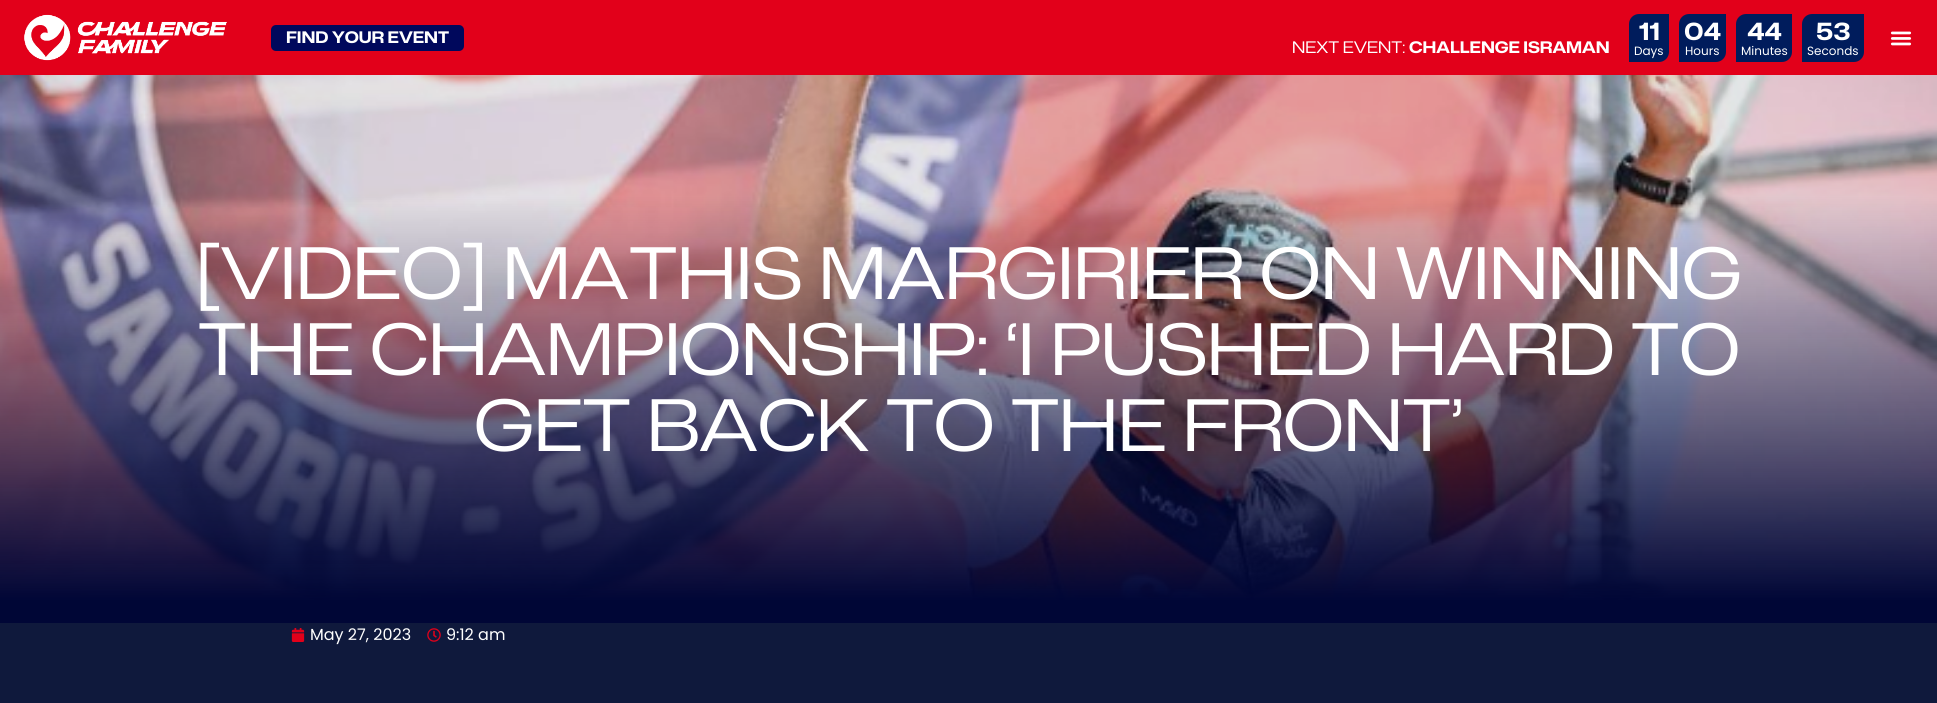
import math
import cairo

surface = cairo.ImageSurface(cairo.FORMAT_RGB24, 1937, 703)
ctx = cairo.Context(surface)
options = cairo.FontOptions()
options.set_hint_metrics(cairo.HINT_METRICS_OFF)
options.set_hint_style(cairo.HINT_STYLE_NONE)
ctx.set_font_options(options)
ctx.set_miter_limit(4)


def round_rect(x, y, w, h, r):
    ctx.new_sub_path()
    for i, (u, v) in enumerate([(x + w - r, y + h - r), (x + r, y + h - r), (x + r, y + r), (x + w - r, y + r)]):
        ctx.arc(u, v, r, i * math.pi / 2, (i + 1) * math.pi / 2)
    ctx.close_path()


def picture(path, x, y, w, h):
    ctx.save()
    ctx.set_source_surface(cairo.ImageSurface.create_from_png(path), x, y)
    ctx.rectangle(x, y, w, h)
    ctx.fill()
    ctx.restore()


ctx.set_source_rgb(1, 1, 1)
ctx.paint()
ctx.set_source_rgb(0.886, 0, 0.102)
ctx.rectangle(0, 0, 1937, 75)
ctx.fill()
picture("img1.png", 24, 14, 203, 47)
ctx.set_source_rgb(0, 0.035, 0.361)
round_rect(271, 25, 193, 26, 5)
ctx.fill()
ctx.select_font_face("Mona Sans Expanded", cairo.FONT_SLANT_NORMAL, cairo.FONT_WEIGHT_BOLD)
ctx.set_font_size(16)
ctx.set_source_rgb(1, 1, 1)
ctx.move_to(286, 43)
ctx.show_text("FIND YOUR EVENT")
ctx.set_source_rgb(0, 0.11, 0.361)
ctx.new_path()
ctx.move_to(1639, 14)
ctx.line_to(1669, 14)
ctx.line_to(1669, 52)
ctx.curve_to(1669, 57.5, 1664.5, 62, 1659, 62)
ctx.line_to(1629, 62)
ctx.line_to(1629, 24)
ctx.curve_to(1629, 18.5, 1633.5, 14, 1639, 14)
ctx.close_path()
ctx.fill()
ctx.set_font_size(24)
ctx.set_source_rgb(1, 1, 1)
ctx.move_to(1639, 40)
ctx.show_text("11")
ctx.select_font_face("Poppins")
ctx.set_font_size(12)
ctx.move_to(1634, 55)
ctx.show_text("Days")
ctx.set_source_rgb(0, 0.11, 0.361)
ctx.new_path()
ctx.move_to(1689, 14)
ctx.line_to(1726, 14)
ctx.line_to(1726, 52)
ctx.curve_to(1726, 57.5, 1721.5, 62, 1716, 62)
ctx.line_to(1679, 62)
ctx.line_to(1679, 24)
ctx.curve_to(1679, 18.5, 1683.5, 14, 1689, 14)
ctx.close_path()
ctx.fill()
ctx.select_font_face("Mona Sans Expanded", cairo.FONT_SLANT_NORMAL, cairo.FONT_WEIGHT_BOLD)
ctx.set_font_size(24)
ctx.set_source_rgb(1, 1, 1)
ctx.move_to(1684, 40)
ctx.show_text("04")
ctx.select_font_face("Poppins")
ctx.set_font_size(12)
ctx.move_to(1685, 55)
ctx.show_text("Hours")
ctx.set_source_rgb(0, 0.11, 0.361)
ctx.new_path()
ctx.move_to(1746, 14)
ctx.line_to(1792, 14)
ctx.line_to(1792, 52)
ctx.curve_to(1792, 57.5, 1787.5, 62, 1782, 62)
ctx.line_to(1736, 62)
ctx.line_to(1736, 24)
ctx.curve_to(1736, 18.5, 1740.5, 14, 1746, 14)
ctx.close_path()
ctx.fill()
ctx.select_font_face("Mona Sans Expanded", cairo.FONT_SLANT_NORMAL, cairo.FONT_WEIGHT_BOLD)
ctx.set_font_size(24)
ctx.set_source_rgb(1, 1, 1)
ctx.move_to(1747, 40)
ctx.show_text("44")
ctx.select_font_face("Poppins")
ctx.set_font_size(12)
ctx.move_to(1741, 55)
ctx.show_text("Minutes")
ctx.set_source_rgb(0, 0.11, 0.361)
ctx.new_path()
ctx.move_to(1812, 14)
ctx.line_to(1864, 14)
ctx.line_to(1864, 52)
ctx.curve_to(1864, 57.5, 1859.5, 62, 1854, 62)
ctx.line_to(1802, 62)
ctx.line_to(1802, 24)
ctx.curve_to(1802, 18.5, 1806.5, 14, 1812, 14)
ctx.close_path()
ctx.fill()
ctx.select_font_face("Mona Sans Expanded", cairo.FONT_SLANT_NORMAL, cairo.FONT_WEIGHT_BOLD)
ctx.set_font_size(24)
ctx.set_source_rgb(1, 1, 1)
ctx.move_to(1816, 40)
ctx.show_text("53")
ctx.select_font_face("Poppins")
ctx.set_font_size(12)
ctx.move_to(1807, 55)
ctx.show_text("Seconds")
picture("img2.png", 1890, 31, 22, 15)
ctx.select_font_face("Mona Sans Expanded")
ctx.set_font_size(16)
ctx.move_to(1292, 53)
ctx.show_text("NEXT EVENT:")
ctx.select_font_face("Mona Sans Expanded", cairo.FONT_SLANT_NORMAL, cairo.FONT_WEIGHT_BOLD)
ctx.move_to(1409, 53)
ctx.show_text("CHALLENGE ISRAMAN")
picture("img3.png", 0, 75, 1937, 548)
ctx.select_font_face("Mona Sans Expanded")
ctx.set_font_size(71)
ctx.move_to(196, 299)
ctx.show_text("[VIDEO] MATHIS MARGIRIER ON WINNING")
ctx.move_to(198, 375)
ctx.show_text("THE CHAMPIONSHIP: ‘I PUSHED HARD TO")
ctx.move_to(474, 451)
ctx.show_text("GET BACK TO THE FRONT’")
ctx.set_source_rgb(0.059, 0.098, 0.235)
ctx.rectangle(0, 623, 1937, 80)
ctx.fill()
picture("img4.png", 291, 628, 14, 14)
ctx.select_font_face("Poppins")
ctx.set_font_size(16)
ctx.set_source_rgb(1, 1, 1)
ctx.move_to(310, 640)
ctx.show_text("May 27, 2023")
picture("img5.png", 427, 628, 14, 14)
ctx.move_to(446, 640)
ctx.show_text("9:12 am")
surface.write_to_png("page.png")
